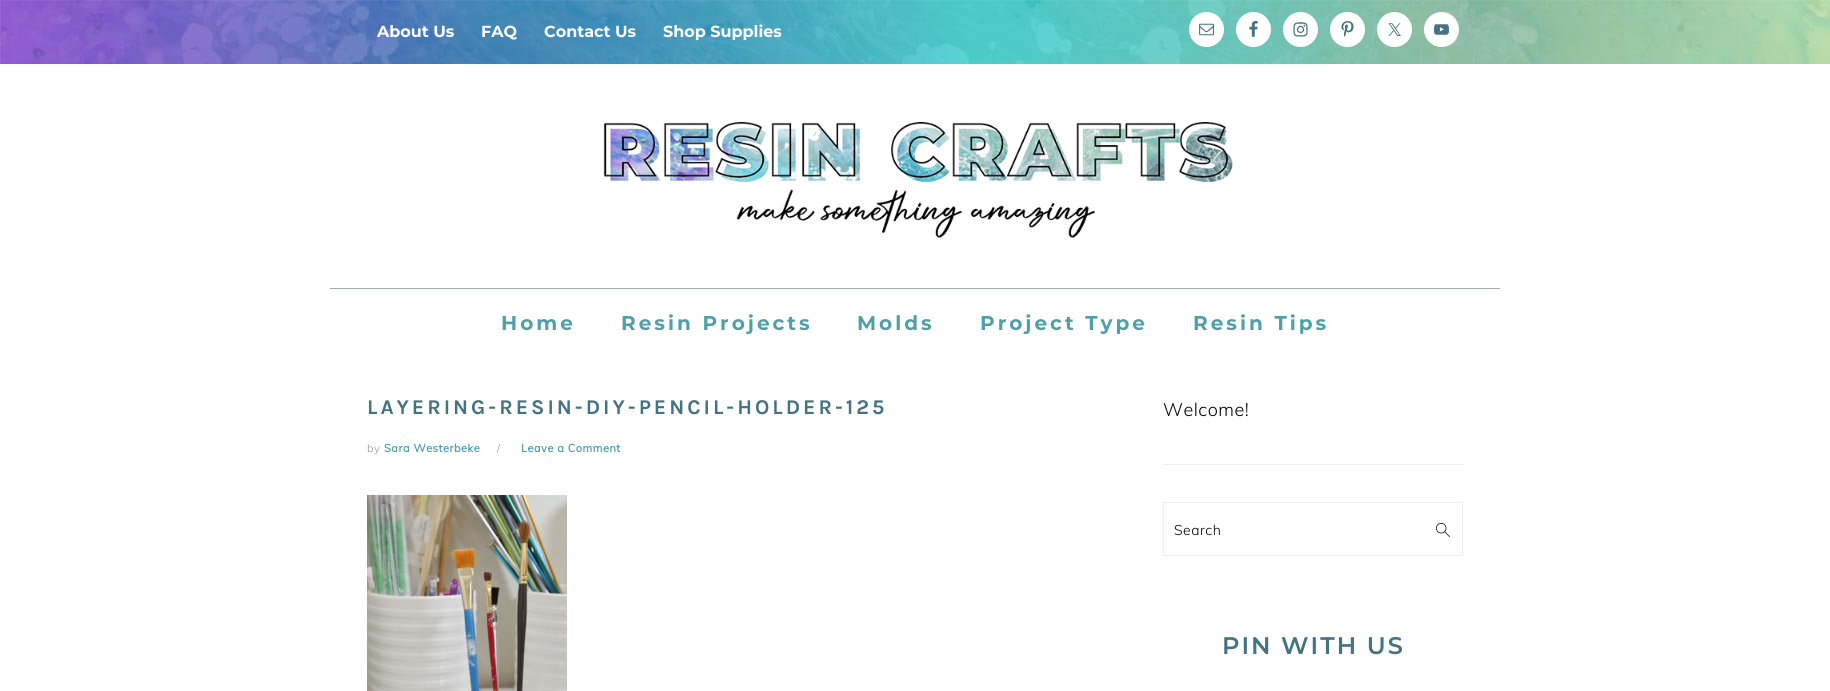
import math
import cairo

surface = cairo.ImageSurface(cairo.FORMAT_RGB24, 1830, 691)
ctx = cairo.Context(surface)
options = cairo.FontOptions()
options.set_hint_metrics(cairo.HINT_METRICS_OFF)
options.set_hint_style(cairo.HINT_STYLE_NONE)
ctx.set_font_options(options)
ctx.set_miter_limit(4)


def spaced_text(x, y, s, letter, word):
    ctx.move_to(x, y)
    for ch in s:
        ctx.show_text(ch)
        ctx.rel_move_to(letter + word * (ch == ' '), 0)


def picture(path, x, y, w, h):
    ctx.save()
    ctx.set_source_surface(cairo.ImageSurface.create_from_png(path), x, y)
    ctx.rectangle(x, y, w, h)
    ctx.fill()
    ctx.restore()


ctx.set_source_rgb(1, 1, 1)
ctx.paint()
picture("img1.png", 0, 0, 1830, 64)
ctx.select_font_face("Montserrat", cairo.FONT_SLANT_NORMAL, cairo.FONT_WEIGHT_BOLD)
ctx.set_font_size(16)
ctx.set_source_rgb(1, 1, 1)
ctx.move_to(377, 37)
ctx.show_text("About Us")
ctx.move_to(481, 37)
ctx.show_text("FAQ")
ctx.move_to(544, 37)
ctx.show_text("Contact Us")
ctx.move_to(663, 37)
ctx.show_text("Shop Supplies")
ctx.new_path()
ctx.arc(1206.5, 29.5, 17.5, 0, 2 * math.pi)
ctx.fill()
picture("img2.png", 1199, 23, 15, 13)
ctx.arc(1253.5, 29.5, 17.5, 0, 2 * math.pi)
ctx.fill()
picture("img3.png", 1249, 21, 9, 16)
ctx.arc(1300.5, 29.5, 17.5, 0, 2 * math.pi)
ctx.fill()
picture("img4.png", 1293, 22, 15, 15)
ctx.arc(1347.5, 29.5, 17.5, 0, 2 * math.pi)
ctx.fill()
picture("img5.png", 1341, 21, 13, 16)
ctx.arc(1394.5, 29.5, 17.5, 0, 2 * math.pi)
ctx.fill()
picture("img6.png", 1388, 23, 13, 13)
ctx.arc(1441.5, 29.5, 17.5, 0, 2 * math.pi)
ctx.fill()
picture("img7.png", 1434, 24, 15, 11)
picture("img8.png", 603, 122, 630, 116)
ctx.set_source_rgb(0.651, 0.671, 0.671)
ctx.rectangle(330, 288, 1170, 1)
ctx.fill()
ctx.set_font_size(20)
ctx.set_source_rgb(0.314, 0.627, 0.663)
spaced_text(501, 330, "Home", 3, 0)
spaced_text(621, 330, "Resin Projects", 3, 0)
spaced_text(857, 330, "Molds", 3, 0)
spaced_text(980, 330, "Project Type", 3, 0)
spaced_text(1193, 330, "Resin Tips", 3, 0)
ctx.select_font_face("Karla", cairo.FONT_SLANT_NORMAL, cairo.FONT_WEIGHT_BOLD)
ctx.set_font_size(21)
ctx.set_source_rgb(0.267, 0.451, 0.51)
spaced_text(367, 414, "LAYERING-RESIN-DIY-PENCIL-HOLDER-125", 3, 0)
ctx.select_font_face("Muli Light")
ctx.set_font_size(11)
ctx.set_source_rgb(0.58, 0.584, 0.596)
spaced_text(367, 452, "by", 0.5, 0)
ctx.select_font_face("Muli", cairo.FONT_SLANT_NORMAL, cairo.FONT_WEIGHT_BOLD)
ctx.set_source_rgb(0.314, 0.627, 0.663)
spaced_text(384, 452, "Sara Westerbeke", 0.5, 0)
ctx.select_font_face("Muli Light")
ctx.set_source_rgb(0.58, 0.584, 0.596)
spaced_text(497, 452, "/", 0.5, 0)
ctx.select_font_face("Muli", cairo.FONT_SLANT_NORMAL, cairo.FONT_WEIGHT_BOLD)
ctx.set_source_rgb(0.314, 0.627, 0.663)
spaced_text(521, 452, "Leave a Comment", 0.5, 0)
picture("img9.png", 367, 495, 200, 196)
ctx.set_source_rgb(0.933, 0.933, 0.933)
ctx.rectangle(1163, 464, 300, 1)
ctx.fill()
ctx.select_font_face("Muli Light")
ctx.set_font_size(18)
ctx.set_source_rgb(0.004, 0.004, 0.004)
spaced_text(1163, 416, "Welcome!", 0.5, 0)
ctx.rectangle(1163.5, 502.5, 299, 53)
ctx.set_source_rgb(0.933, 0.933, 0.933)
ctx.set_line_width(1)
ctx.stroke()
picture("img10.png", 1436, 523, 14, 14)
ctx.set_font_size(14)
ctx.set_source_rgb(0.004, 0.004, 0.004)
spaced_text(1174, 535, "Search", 0.5, 0)
ctx.select_font_face("Montserrat SemiBold")
ctx.set_font_size(24)
ctx.set_source_rgb(0.267, 0.451, 0.51)
spaced_text(1222, 654, "PIN WITH US", 2, 0)
surface.write_to_png("page.png")
